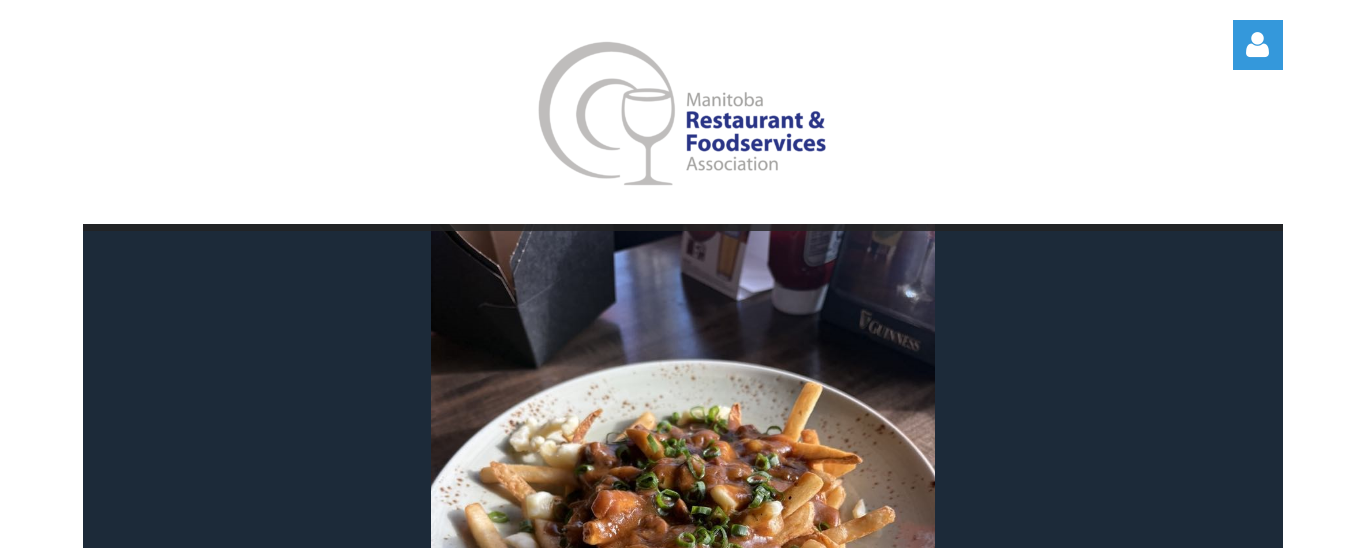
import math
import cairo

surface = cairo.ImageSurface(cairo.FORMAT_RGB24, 1365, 548)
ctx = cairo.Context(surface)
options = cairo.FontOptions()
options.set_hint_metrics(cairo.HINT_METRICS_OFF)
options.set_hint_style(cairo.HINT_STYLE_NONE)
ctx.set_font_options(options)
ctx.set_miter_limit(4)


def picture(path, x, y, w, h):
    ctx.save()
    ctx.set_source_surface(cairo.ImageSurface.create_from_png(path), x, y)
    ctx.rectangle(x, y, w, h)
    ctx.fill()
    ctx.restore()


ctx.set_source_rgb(1, 1, 1)
ctx.paint()
picture("img1.png", 538, 41, 288, 145)
ctx.set_source_rgb(0.204, 0.596, 0.859)
ctx.rectangle(1233, 20, 50, 50)
ctx.fill()
picture("img2.png", 1246, 32, 23, 26)
ctx.set_source_rgb(0.11, 0.165, 0.224)
ctx.rectangle(83, 224, 1200, 324)
ctx.fill()
picture("img3.png", 431, 224, 504, 324)
ctx.set_source_rgba(0.133, 0.133, 0.133, 0.8)
ctx.rectangle(83, 224, 1200, 7)
ctx.fill()
surface.write_to_png("page.png")
